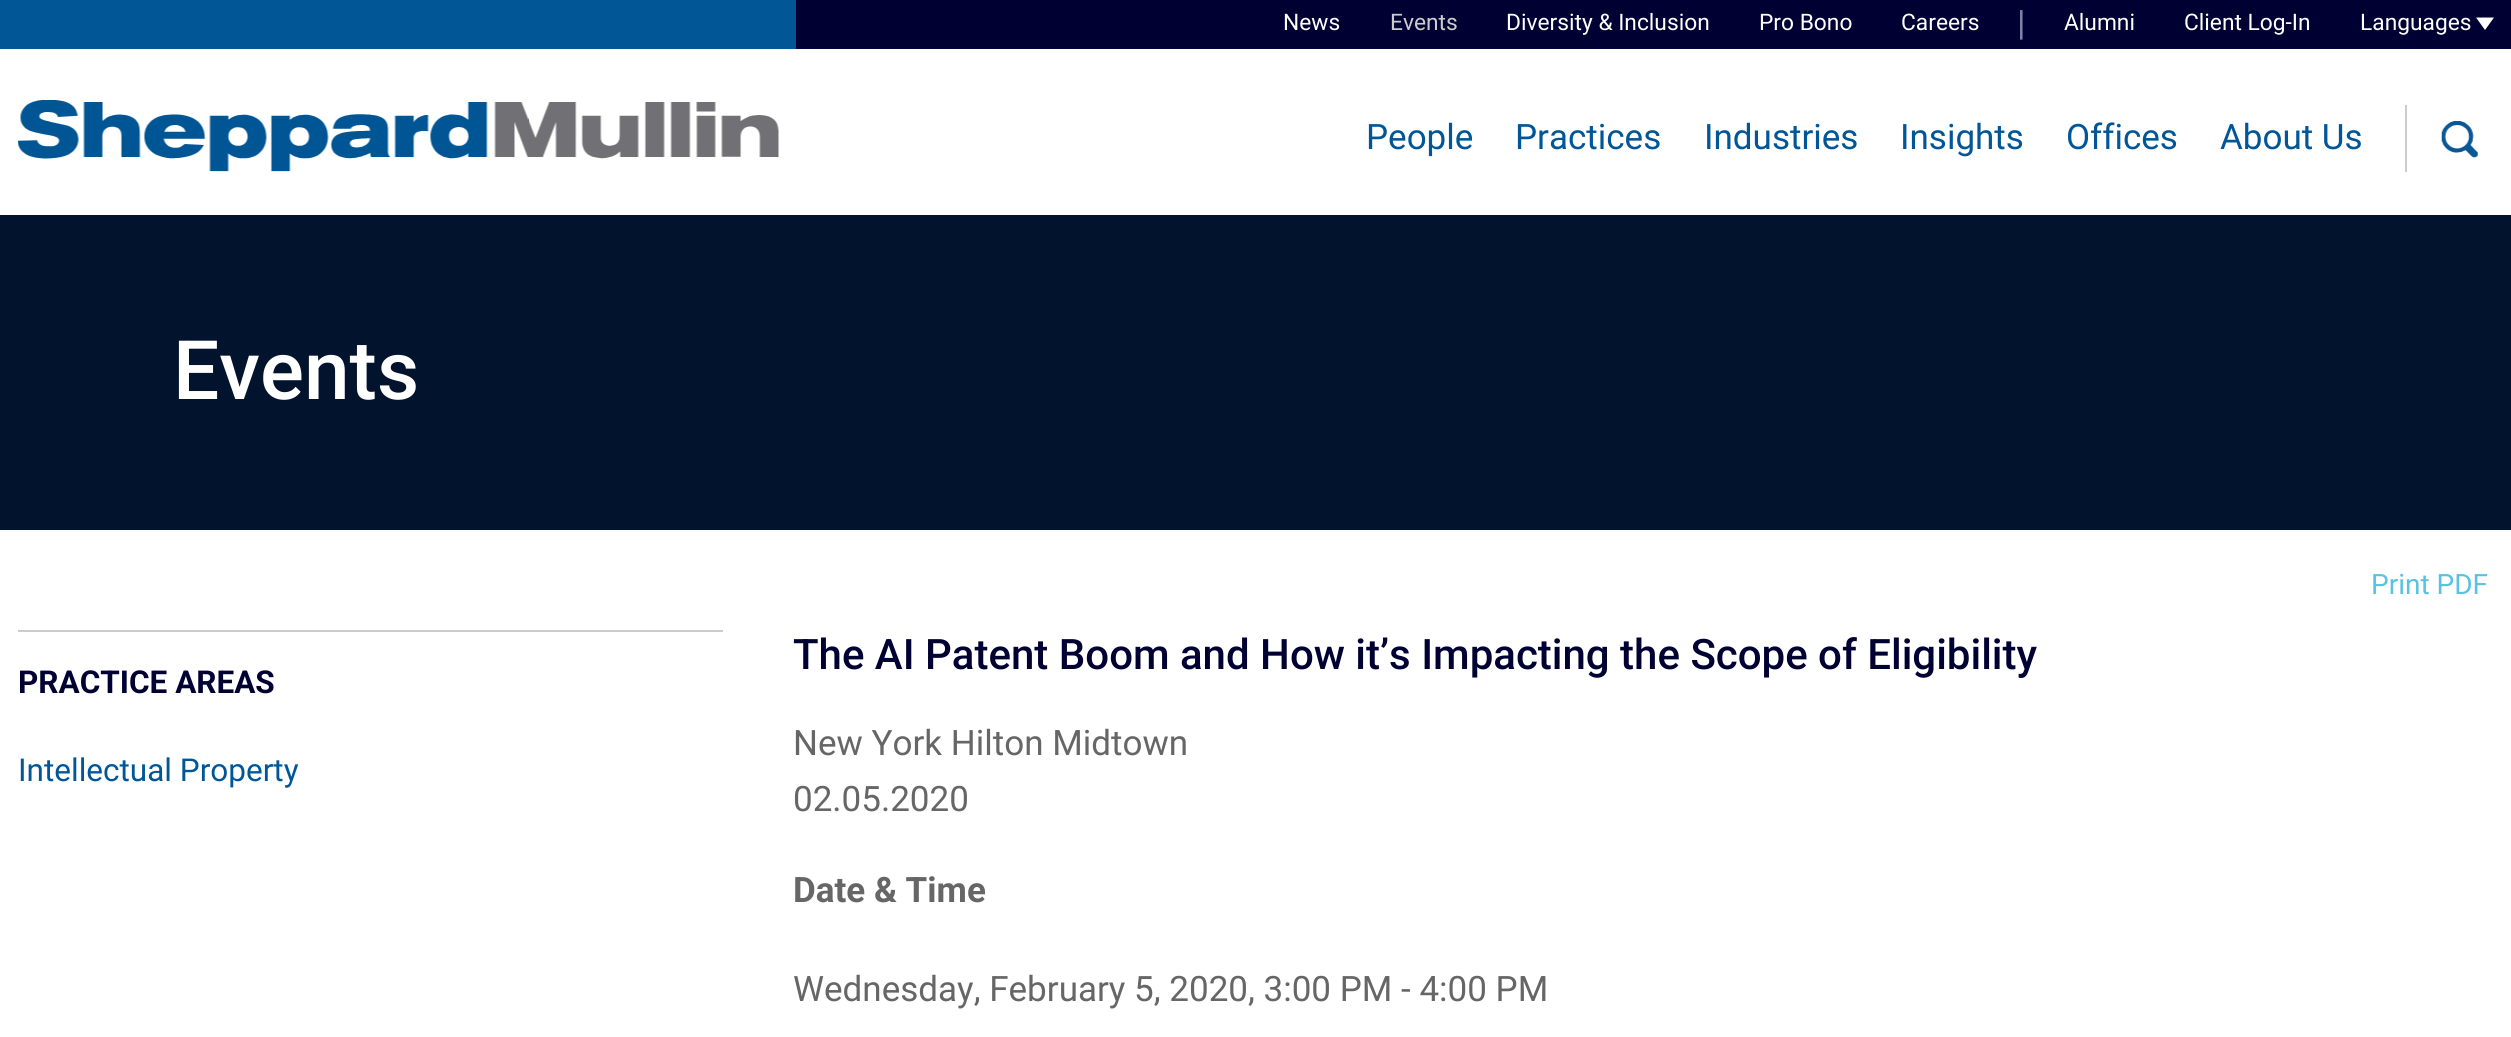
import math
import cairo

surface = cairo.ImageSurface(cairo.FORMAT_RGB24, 2511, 1037)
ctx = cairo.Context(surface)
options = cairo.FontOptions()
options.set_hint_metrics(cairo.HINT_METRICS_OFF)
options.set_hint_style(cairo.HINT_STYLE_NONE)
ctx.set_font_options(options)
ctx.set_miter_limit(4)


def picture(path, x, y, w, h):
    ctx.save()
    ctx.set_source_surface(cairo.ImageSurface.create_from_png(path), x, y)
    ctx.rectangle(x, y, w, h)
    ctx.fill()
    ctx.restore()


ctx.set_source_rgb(1, 1, 1)
ctx.paint()
ctx.set_source_rgb(0.004, 0.337, 0.588)
ctx.rectangle(0, 0, 796, 49)
ctx.fill()
ctx.set_source_rgb(0, 0, 0.2)
ctx.rectangle(796, 0, 1715, 49)
ctx.fill()
ctx.select_font_face("Roboto")
ctx.set_font_size(22.75)
ctx.set_source_rgb(1, 1, 1)
ctx.move_to(1283, 30)
ctx.show_text("News")
ctx.set_source_rgb(0.8, 0.8, 0.8)
ctx.move_to(1390, 30)
ctx.show_text("Events")
ctx.set_source_rgb(1, 1, 1)
ctx.move_to(1506, 30)
ctx.show_text("Diversity & Inclusion")
ctx.move_to(1759, 30)
ctx.show_text("Pro Bono")
ctx.move_to(1901, 30)
ctx.show_text("Careers")
ctx.set_font_size(35)
ctx.set_source_rgb(0.51, 0.51, 0.659)
ctx.move_to(2017, 35)
ctx.show_text("|")
ctx.set_font_size(22.75)
ctx.set_source_rgb(1, 1, 1)
ctx.move_to(2064, 30)
ctx.show_text("Alumni")
ctx.move_to(2184, 30)
ctx.show_text("Client Log-In")
ctx.move_to(2360, 30)
ctx.show_text("Languages")
ctx.new_path()
ctx.move_to(2476, 17.5)
ctx.line_to(2494, 17.5)
ctx.line_to(2485, 30)
ctx.close_path()
ctx.fill()
ctx.set_source_rgb(0.8, 0.8, 0.8)
ctx.rectangle(2405, 105, 2, 67)
ctx.fill()
ctx.set_font_size(35)
ctx.set_source_rgb(0, 0.337, 0.588)
ctx.move_to(1366, 149)
ctx.show_text("People")
ctx.move_to(1515, 149)
ctx.show_text("Practices")
ctx.move_to(1704, 149)
ctx.show_text("Industries")
ctx.move_to(1900, 149)
ctx.show_text("Insights")
ctx.move_to(2066, 149)
ctx.show_text("Offices")
ctx.move_to(2220, 149)
ctx.show_text("About Us")
picture("img1.png", 18, 100, 761, 72)
picture("img2.png", 2441, 121, 37, 37)
ctx.set_source_rgb(0.008, 0.078, 0.18)
ctx.rectangle(0, 215, 2511, 315)
ctx.fill()
ctx.select_font_face("Roboto Medium")
ctx.set_font_size(82)
ctx.set_source_rgb(1, 1, 1)
ctx.move_to(173, 399)
ctx.show_text("Events")
ctx.select_font_face("Roboto")
ctx.set_font_size(28)
ctx.set_source_rgb(0.345, 0.761, 0.89)
ctx.move_to(2371, 594)
ctx.show_text("Print PDF")
ctx.set_source_rgb(0.8, 0.8, 0.8)
ctx.rectangle(18, 630, 705, 2)
ctx.fill()
ctx.select_font_face("Roboto", cairo.FONT_SLANT_NORMAL, cairo.FONT_WEIGHT_BOLD)
ctx.set_font_size(31.5)
ctx.set_source_rgb(0, 0, 0.2)
ctx.move_to(18, 693)
ctx.show_text("PRACTICE AREAS")
ctx.select_font_face("Roboto")
ctx.set_source_rgb(0, 0.337, 0.588)
ctx.move_to(18, 781)
ctx.show_text("Intellectual Property")
ctx.select_font_face("Roboto Medium")
ctx.set_font_size(42)
ctx.set_source_rgb(0, 0, 0.2)
ctx.move_to(793, 669)
ctx.show_text("The AI Patent Boom and How it’s Impacting the Scope of Eligibility")
ctx.select_font_face("Roboto")
ctx.set_font_size(35)
ctx.set_source_rgb(0.4, 0.4, 0.4)
ctx.move_to(793, 755)
ctx.show_text("New York Hilton Midtown")
ctx.move_to(793, 811)
ctx.show_text("02.05.2020")
ctx.select_font_face("Roboto", cairo.FONT_SLANT_NORMAL, cairo.FONT_WEIGHT_BOLD)
ctx.move_to(793, 902)
ctx.show_text("Date & Time")
ctx.select_font_face("Roboto")
ctx.move_to(793, 1001)
ctx.show_text("Wednesday, February 5, 2020, 3:00 PM - 4:00 PM")
surface.write_to_png("page.png")
